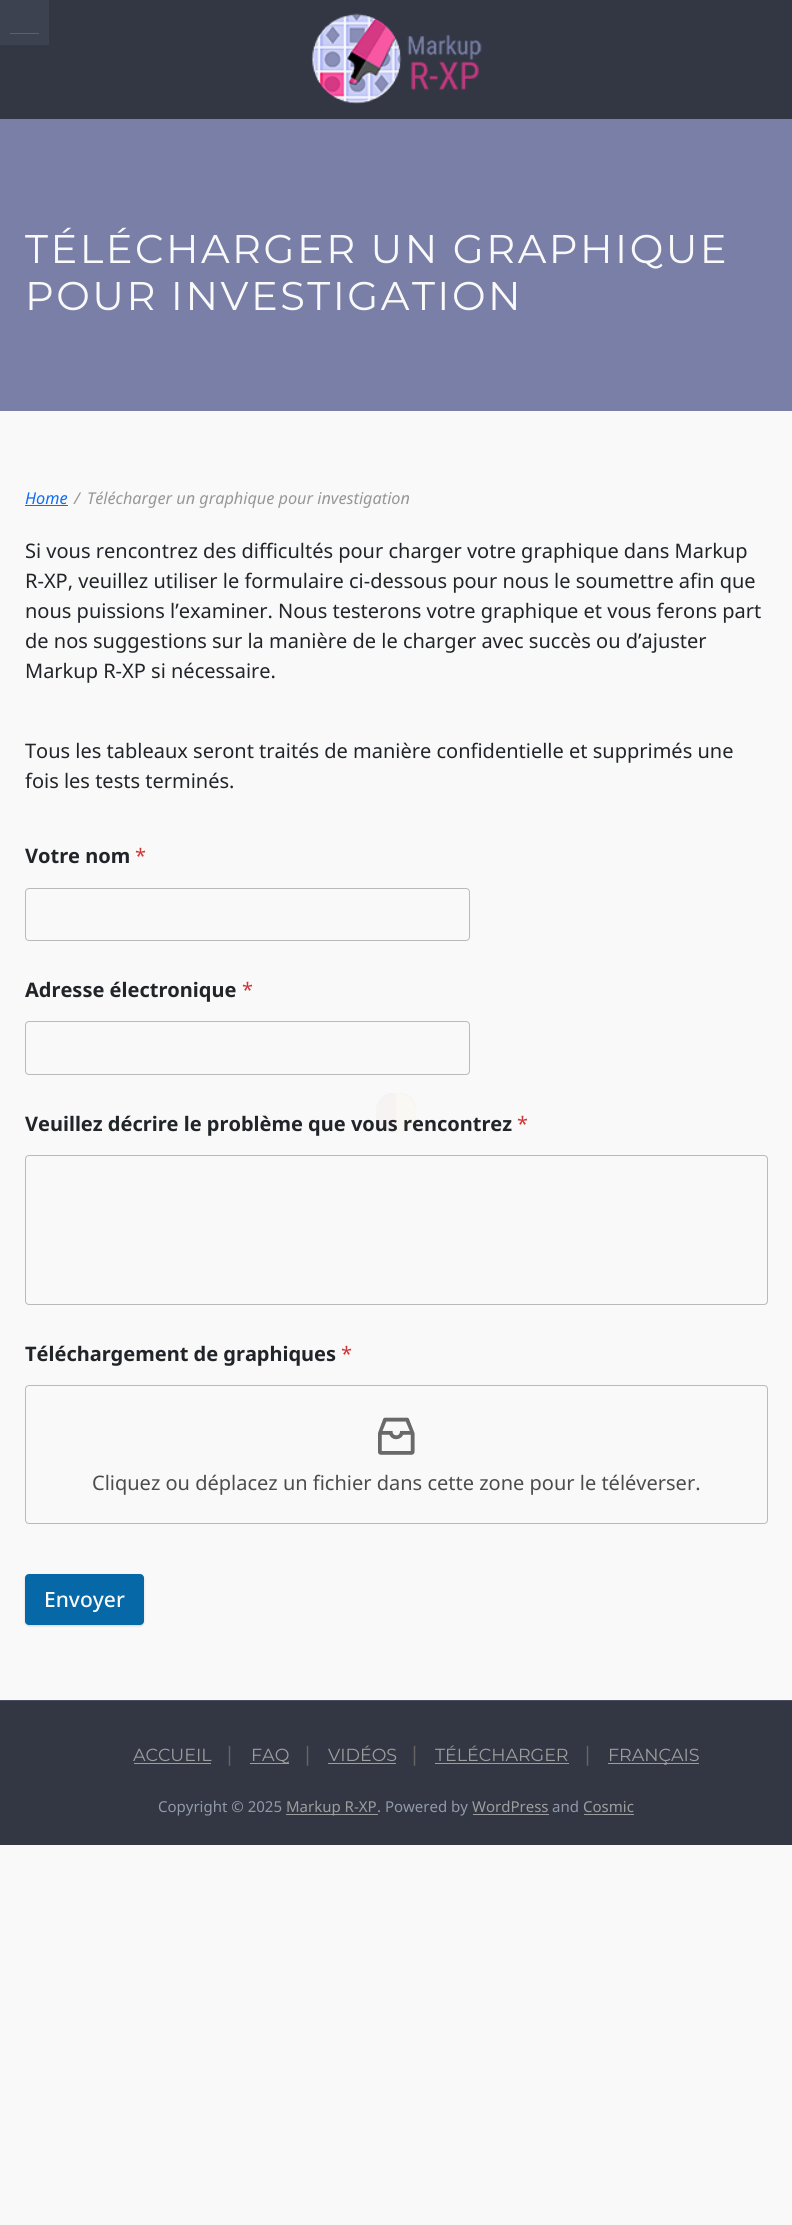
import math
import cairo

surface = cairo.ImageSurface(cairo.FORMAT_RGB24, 792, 2225)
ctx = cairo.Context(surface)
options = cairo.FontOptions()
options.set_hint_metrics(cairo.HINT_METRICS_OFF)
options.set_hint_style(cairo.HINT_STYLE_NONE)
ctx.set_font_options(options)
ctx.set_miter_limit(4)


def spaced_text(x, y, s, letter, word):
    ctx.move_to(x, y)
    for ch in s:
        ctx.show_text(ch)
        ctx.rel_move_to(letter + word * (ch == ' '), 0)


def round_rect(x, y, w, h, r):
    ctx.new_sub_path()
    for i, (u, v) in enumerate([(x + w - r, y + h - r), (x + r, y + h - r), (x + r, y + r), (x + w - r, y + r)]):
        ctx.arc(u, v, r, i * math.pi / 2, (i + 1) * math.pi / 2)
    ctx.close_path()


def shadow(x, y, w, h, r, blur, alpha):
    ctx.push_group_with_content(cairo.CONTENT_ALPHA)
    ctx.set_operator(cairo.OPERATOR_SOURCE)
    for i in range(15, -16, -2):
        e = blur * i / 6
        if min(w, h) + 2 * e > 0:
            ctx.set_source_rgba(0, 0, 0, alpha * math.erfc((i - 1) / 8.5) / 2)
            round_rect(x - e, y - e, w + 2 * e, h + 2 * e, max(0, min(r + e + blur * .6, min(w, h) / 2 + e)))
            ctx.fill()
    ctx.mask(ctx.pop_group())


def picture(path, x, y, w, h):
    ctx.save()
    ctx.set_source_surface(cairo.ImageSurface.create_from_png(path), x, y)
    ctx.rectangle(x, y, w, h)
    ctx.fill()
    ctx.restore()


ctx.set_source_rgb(0.973, 0.976, 0.976)
ctx.paint()
ctx.set_source_rgb(0.196, 0.216, 0.263)
ctx.rectangle(0, 0, 792, 119)
ctx.fill()
ctx.set_source_rgb(0.239, 0.259, 0.314)
ctx.rectangle(0, 0, 49, 45)
ctx.fill()
ctx.set_source_rgb(0.055, 0.424, 0.969)
ctx.rectangle(10, 33, 29, 1)
ctx.fill()
picture("img1.png", 311, 13, 171, 91)
ctx.set_source_rgb(0.478, 0.498, 0.659)
ctx.rectangle(0, 119, 792, 292)
ctx.fill()
ctx.select_font_face("Montserrat")
ctx.set_font_size(40)
ctx.set_source_rgb(0.973, 0.976, 0.976)
spaced_text(25, 263, "TÉLÉCHARGER UN GRAPHIQUE", 2.5, 0)
spaced_text(25, 310, "POUR INVESTIGATION", 2.5, 0)
ctx.select_font_face("Noto Sans", cairo.FONT_SLANT_ITALIC)
ctx.set_font_size(16.25)
ctx.set_source_rgb(0.055, 0.424, 0.969)
ctx.move_to(25, 504)
ctx.show_text("Home")
ctx.rectangle(25, 505, 43, 1)
ctx.fill()
ctx.set_source_rgb(0.588, 0.592, 0.592)
ctx.move_to(74, 504)
ctx.show_text("/")
ctx.move_to(87, 504)
ctx.show_text("Télécharger un graphique pour investigation")
ctx.select_font_face("Noto Sans")
ctx.set_font_size(20)
ctx.set_source_rgb(0.129, 0.145, 0.161)
ctx.move_to(25, 558)
ctx.show_text("Si vous rencontrez des difficultés pour charger votre graphique dans Markup")
ctx.move_to(25, 588)
ctx.show_text("R-XP, veuillez utiliser le formulaire ci-dessous pour nous le soumettre afin que")
ctx.move_to(25, 618)
ctx.show_text("nous puissions l’examiner. Nous testerons votre graphique et vous ferons part")
ctx.move_to(25, 648)
ctx.show_text("de nos suggestions sur la manière de le charger avec succès ou d’ajuster")
ctx.move_to(25, 678)
ctx.show_text("Markup R-XP si nécessaire.")
ctx.move_to(25, 758)
ctx.show_text("Tous les tableaux seront traités de manière confidentielle et supprimés une")
ctx.move_to(25, 788)
ctx.show_text("fois les tests terminés.")
ctx.select_font_face("Noto Sans", cairo.FONT_SLANT_NORMAL, cairo.FONT_WEIGHT_BOLD)
ctx.move_to(25, 863)
ctx.show_text("Votre nom")
ctx.select_font_face("Noto Sans")
ctx.set_source_rgb(0.82, 0.212, 0.216)
ctx.move_to(135, 863)
ctx.show_text("*")
round_rect(25.5, 888.5, 444, 52, 3.5)
ctx.set_source_rgb(0.729, 0.729, 0.733)
ctx.set_line_width(1)
ctx.stroke()
ctx.select_font_face("Noto Sans", cairo.FONT_SLANT_NORMAL, cairo.FONT_WEIGHT_BOLD)
ctx.set_source_rgb(0.129, 0.145, 0.161)
ctx.move_to(25, 997)
ctx.show_text("Adresse électronique")
ctx.select_font_face("Noto Sans")
ctx.set_source_rgb(0.82, 0.212, 0.216)
ctx.move_to(242, 997)
ctx.show_text("*")
round_rect(25.5, 1021.5, 444, 53, 3.5)
ctx.set_source_rgb(0.729, 0.729, 0.733)
ctx.stroke()
ctx.select_font_face("Noto Sans", cairo.FONT_SLANT_NORMAL, cairo.FONT_WEIGHT_BOLD)
ctx.set_source_rgb(0.129, 0.145, 0.161)
ctx.move_to(25, 1131)
ctx.show_text("Veuillez décrire le problème que vous rencontrez")
ctx.select_font_face("Noto Sans")
ctx.set_source_rgb(0.82, 0.212, 0.216)
ctx.move_to(517, 1131)
ctx.show_text("*")
round_rect(25.5, 1155.5, 742, 149, 3.5)
ctx.set_source_rgb(0.729, 0.729, 0.733)
ctx.stroke()
ctx.select_font_face("Noto Sans", cairo.FONT_SLANT_NORMAL, cairo.FONT_WEIGHT_BOLD)
ctx.set_source_rgb(0.129, 0.145, 0.161)
ctx.move_to(25, 1361)
ctx.show_text("Téléchargement de graphiques")
ctx.select_font_face("Noto Sans")
ctx.set_source_rgb(0.82, 0.212, 0.216)
ctx.move_to(341, 1361)
ctx.show_text("*")
round_rect(25.5, 1385.5, 742, 138, 3.5)
ctx.set_source_rgb(0.729, 0.729, 0.733)
ctx.stroke()
picture("img2.png", 378, 1417, 37, 38)
ctx.set_source_rgb(0.298, 0.298, 0.298)
ctx.move_to(92, 1490)
ctx.show_text("Cliquez ou déplacez un fichier dans cette zone pour le téléverser.")
ctx.set_source_rgb(0.004, 0.004, 0.008)
shadow(25, 1575, 119, 51, 4, 1, 0.15)
ctx.set_source_rgb(0.027, 0.408, 0.655)
round_rect(25, 1574, 119, 51, 4)
ctx.fill()
ctx.select_font_face("Noto Sans Medium")
ctx.set_font_size(21)
ctx.set_source_rgb(0.973, 0.976, 0.976)
ctx.move_to(44, 1607)
ctx.show_text("Envoyer")
ctx.set_source_rgb(0.196, 0.216, 0.263)
ctx.rectangle(0, 1701, 792, 144)
ctx.fill()
ctx.set_source_rgb(0.282, 0.306, 0.373)
ctx.rectangle(0, 1700, 792, 1)
ctx.fill()
ctx.select_font_face("Montserrat")
ctx.set_font_size(17.5)
ctx.set_source_rgb(0.616, 0.616, 0.62)
ctx.move_to(133, 1761)
ctx.show_text("ACCUEIL")
ctx.rectangle(134, 1763, 77, 1)
ctx.fill()
ctx.select_font_face("Noto Sans")
ctx.set_font_size(20)
ctx.set_source_rgb(0.392, 0.392, 0.396)
ctx.move_to(224, 1761)
ctx.show_text("|")
ctx.set_source_rgb(0.616, 0.616, 0.62)
ctx.rectangle(250, 1763, 39, 1)
ctx.fill()
ctx.select_font_face("Montserrat")
ctx.set_font_size(17.5)
ctx.move_to(251, 1761)
ctx.show_text("FAQ")
ctx.select_font_face("Noto Sans")
ctx.set_font_size(20)
ctx.set_source_rgb(0.392, 0.392, 0.396)
ctx.move_to(302, 1761)
ctx.show_text("|")
ctx.select_font_face("Montserrat")
ctx.set_font_size(17.5)
ctx.set_source_rgb(0.616, 0.616, 0.62)
ctx.move_to(328, 1761)
ctx.show_text("VIDÉOS")
ctx.rectangle(328, 1763, 68, 1)
ctx.fill()
ctx.select_font_face("Noto Sans")
ctx.set_font_size(20)
ctx.set_source_rgb(0.392, 0.392, 0.396)
ctx.move_to(409, 1761)
ctx.show_text("|")
ctx.select_font_face("Montserrat")
ctx.set_font_size(17.5)
ctx.set_source_rgb(0.616, 0.616, 0.62)
ctx.move_to(435, 1761)
ctx.show_text("TÉLÉCHARGER")
ctx.rectangle(435, 1763, 134, 1)
ctx.fill()
ctx.select_font_face("Noto Sans")
ctx.set_font_size(20)
ctx.set_source_rgb(0.392, 0.392, 0.396)
ctx.move_to(582, 1761)
ctx.show_text("|")
ctx.set_source_rgb(0.616, 0.616, 0.62)
ctx.rectangle(608, 1763, 91, 1)
ctx.fill()
ctx.select_font_face("Montserrat")
ctx.set_font_size(17.5)
ctx.move_to(608, 1761)
ctx.show_text("FRANÇAIS")
ctx.select_font_face("Noto Sans")
ctx.set_font_size(15)
ctx.set_source_rgb(0.569, 0.596, 0.667)
ctx.move_to(158, 1812)
ctx.show_text("Copyright © 2025")
ctx.set_source_rgb(0.616, 0.616, 0.62)
ctx.rectangle(286, 1814, 92, 1)
ctx.fill()
ctx.move_to(286, 1812)
ctx.show_text("Markup R-XP")
ctx.set_source_rgb(0.569, 0.596, 0.667)
ctx.move_to(377, 1812)
ctx.show_text(". Powered by")
ctx.set_source_rgb(0.616, 0.616, 0.62)
ctx.move_to(472, 1812)
ctx.show_text("WordPress")
ctx.rectangle(473, 1814, 76, 1)
ctx.fill()
ctx.set_source_rgb(0.569, 0.596, 0.667)
ctx.move_to(552, 1812)
ctx.show_text("and")
ctx.set_source_rgb(0.616, 0.616, 0.62)
ctx.move_to(583, 1812)
ctx.show_text("Cosmic")
ctx.rectangle(584, 1814, 50, 1)
ctx.fill()
picture("img3.png", 376, 1093, 40, 362)
surface.write_to_png("page.png")
